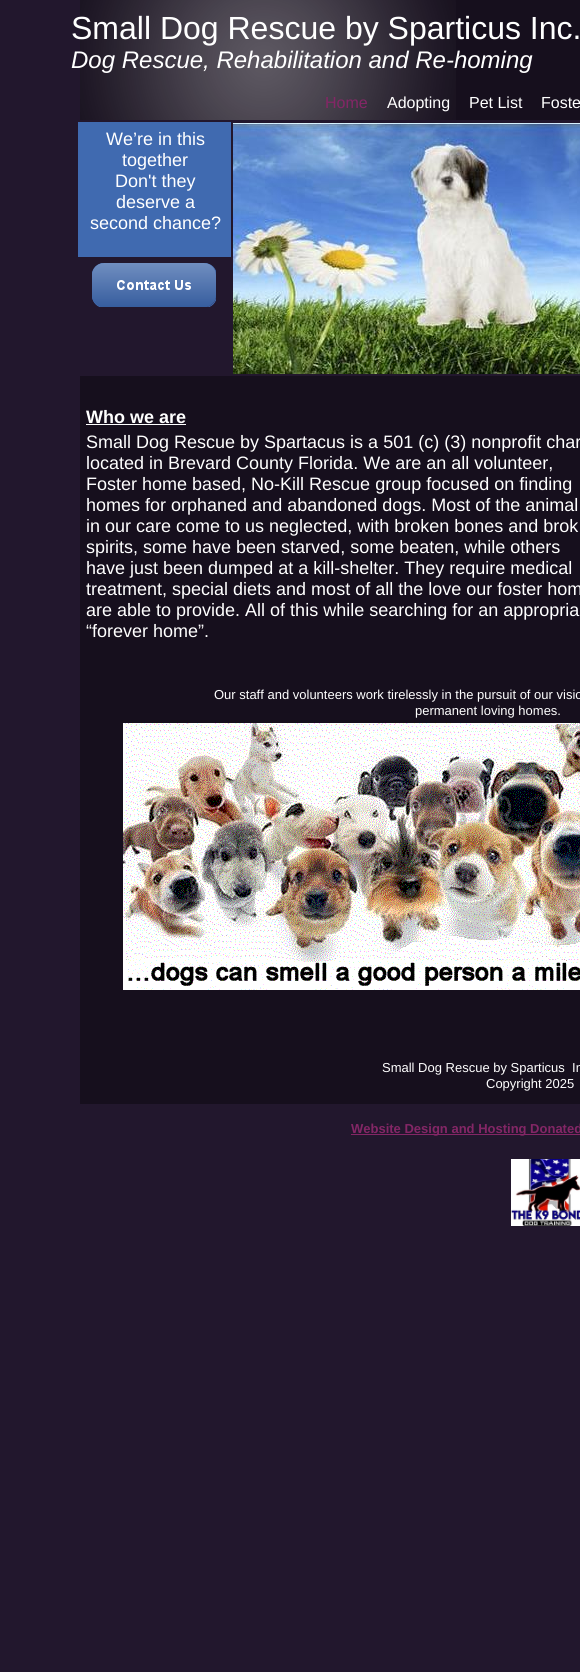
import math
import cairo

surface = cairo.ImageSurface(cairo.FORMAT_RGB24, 580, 1672)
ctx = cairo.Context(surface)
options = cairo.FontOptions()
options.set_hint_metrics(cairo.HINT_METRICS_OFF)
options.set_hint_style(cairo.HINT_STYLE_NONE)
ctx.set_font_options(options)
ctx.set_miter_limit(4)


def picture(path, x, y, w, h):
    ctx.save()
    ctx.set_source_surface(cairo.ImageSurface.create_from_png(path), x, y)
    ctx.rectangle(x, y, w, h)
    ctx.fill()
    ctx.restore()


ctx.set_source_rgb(0.133, 0.09, 0.176)
ctx.paint()
ctx.set_source_rgb(0.086, 0.059, 0.114)
ctx.rectangle(80, 0, 500, 120)
ctx.fill()
picture("img1.png", 80, 0, 376, 120)
ctx.select_font_face("Liberation Sans")
ctx.set_font_size(32)
ctx.set_source_rgb(1, 1, 1)
ctx.move_to(71, 39)
ctx.show_text("Small Dog Rescue by Sparticus Inc.")
ctx.select_font_face("Liberation Sans", cairo.FONT_SLANT_ITALIC)
ctx.set_font_size(24)
ctx.move_to(71, 68)
ctx.show_text("Dog Rescue, Rehabilitation and Re-homing")
ctx.select_font_face("Liberation Sans")
ctx.set_font_size(16)
ctx.set_source_rgb(0.518, 0.149, 0.4)
ctx.move_to(325, 108)
ctx.show_text("Home")
ctx.set_source_rgb(1, 1, 1)
ctx.move_to(387, 108)
ctx.show_text("Adopting")
ctx.move_to(469, 108)
ctx.show_text("Pet List")
ctx.move_to(541, 108)
ctx.show_text("Foste")
ctx.set_source_rgb(0.251, 0.416, 0.69)
ctx.rectangle(78, 122, 153, 135)
ctx.fill()
picture("img2.png", 233, 123, 347, 251)
ctx.set_font_size(18)
ctx.set_source_rgb(1, 1, 1)
ctx.move_to(106, 145)
ctx.show_text("We’re in this")
ctx.move_to(122, 166)
ctx.show_text("together")
ctx.move_to(115, 187)
ctx.show_text("Don't they")
ctx.move_to(116, 208)
ctx.show_text("deserve a")
ctx.move_to(90, 229)
ctx.show_text("second chance?")
picture("img3.png", 92, 263, 124, 44)
ctx.set_source_rgb(0.086, 0.059, 0.114)
ctx.rectangle(80, 376, 500, 728)
ctx.fill()
ctx.select_font_face("Liberation Sans", cairo.FONT_SLANT_NORMAL, cairo.FONT_WEIGHT_BOLD)
ctx.set_source_rgb(1, 1, 1)
ctx.move_to(86, 423)
ctx.show_text("Who we are")
ctx.rectangle(86, 424, 100, 1)
ctx.fill()
ctx.select_font_face("Liberation Sans")
ctx.move_to(86, 448)
ctx.show_text("Small Dog Rescue by Spartacus is a 501 (c) (3) nonprofit char")
ctx.move_to(86, 469)
ctx.show_text("located in Brevard County Florida. We are an all volunteer,")
ctx.move_to(86, 490)
ctx.show_text("Foster home based, No-Kill Rescue group focused on finding")
ctx.move_to(86, 511)
ctx.show_text("homes for orphaned and abandoned dogs. Most of the animal")
ctx.move_to(86, 532)
ctx.show_text("in our care come to us neglected, with broken bones and brok")
ctx.move_to(86, 553)
ctx.show_text("spirits, some have been starved, some beaten, while others")
ctx.move_to(86, 574)
ctx.show_text("have just been dumped at a kill-shelter. They require medical")
ctx.move_to(86, 595)
ctx.show_text("treatment, special diets and most of all the love our foster hom")
ctx.move_to(86, 616)
ctx.show_text("are able to provide. All of this while searching for an appropria")
ctx.move_to(86, 637)
ctx.show_text("“forever home”.")
ctx.set_font_size(13)
ctx.move_to(214, 699)
ctx.show_text("Our staff and volunteers work tirelessly in the pursuit of our visio")
ctx.move_to(415, 715)
ctx.show_text("permanent loving homes.")
picture("img4.png", 123, 723, 457, 267)
ctx.move_to(382, 1072)
ctx.show_text("Small Dog Rescue by Sparticus  In")
ctx.move_to(486, 1088)
ctx.show_text("Copyright 2025")
ctx.set_source_rgb(0.518, 0.149, 0.4)
ctx.rectangle(351, 1134, 229, 1)
ctx.fill()
ctx.select_font_face("Liberation Sans", cairo.FONT_SLANT_NORMAL, cairo.FONT_WEIGHT_BOLD)
ctx.move_to(351, 1133)
ctx.show_text("Website Design and Hosting Donated")
picture("img5.png", 511, 1159, 69, 67)
surface.write_to_png("page.png")
